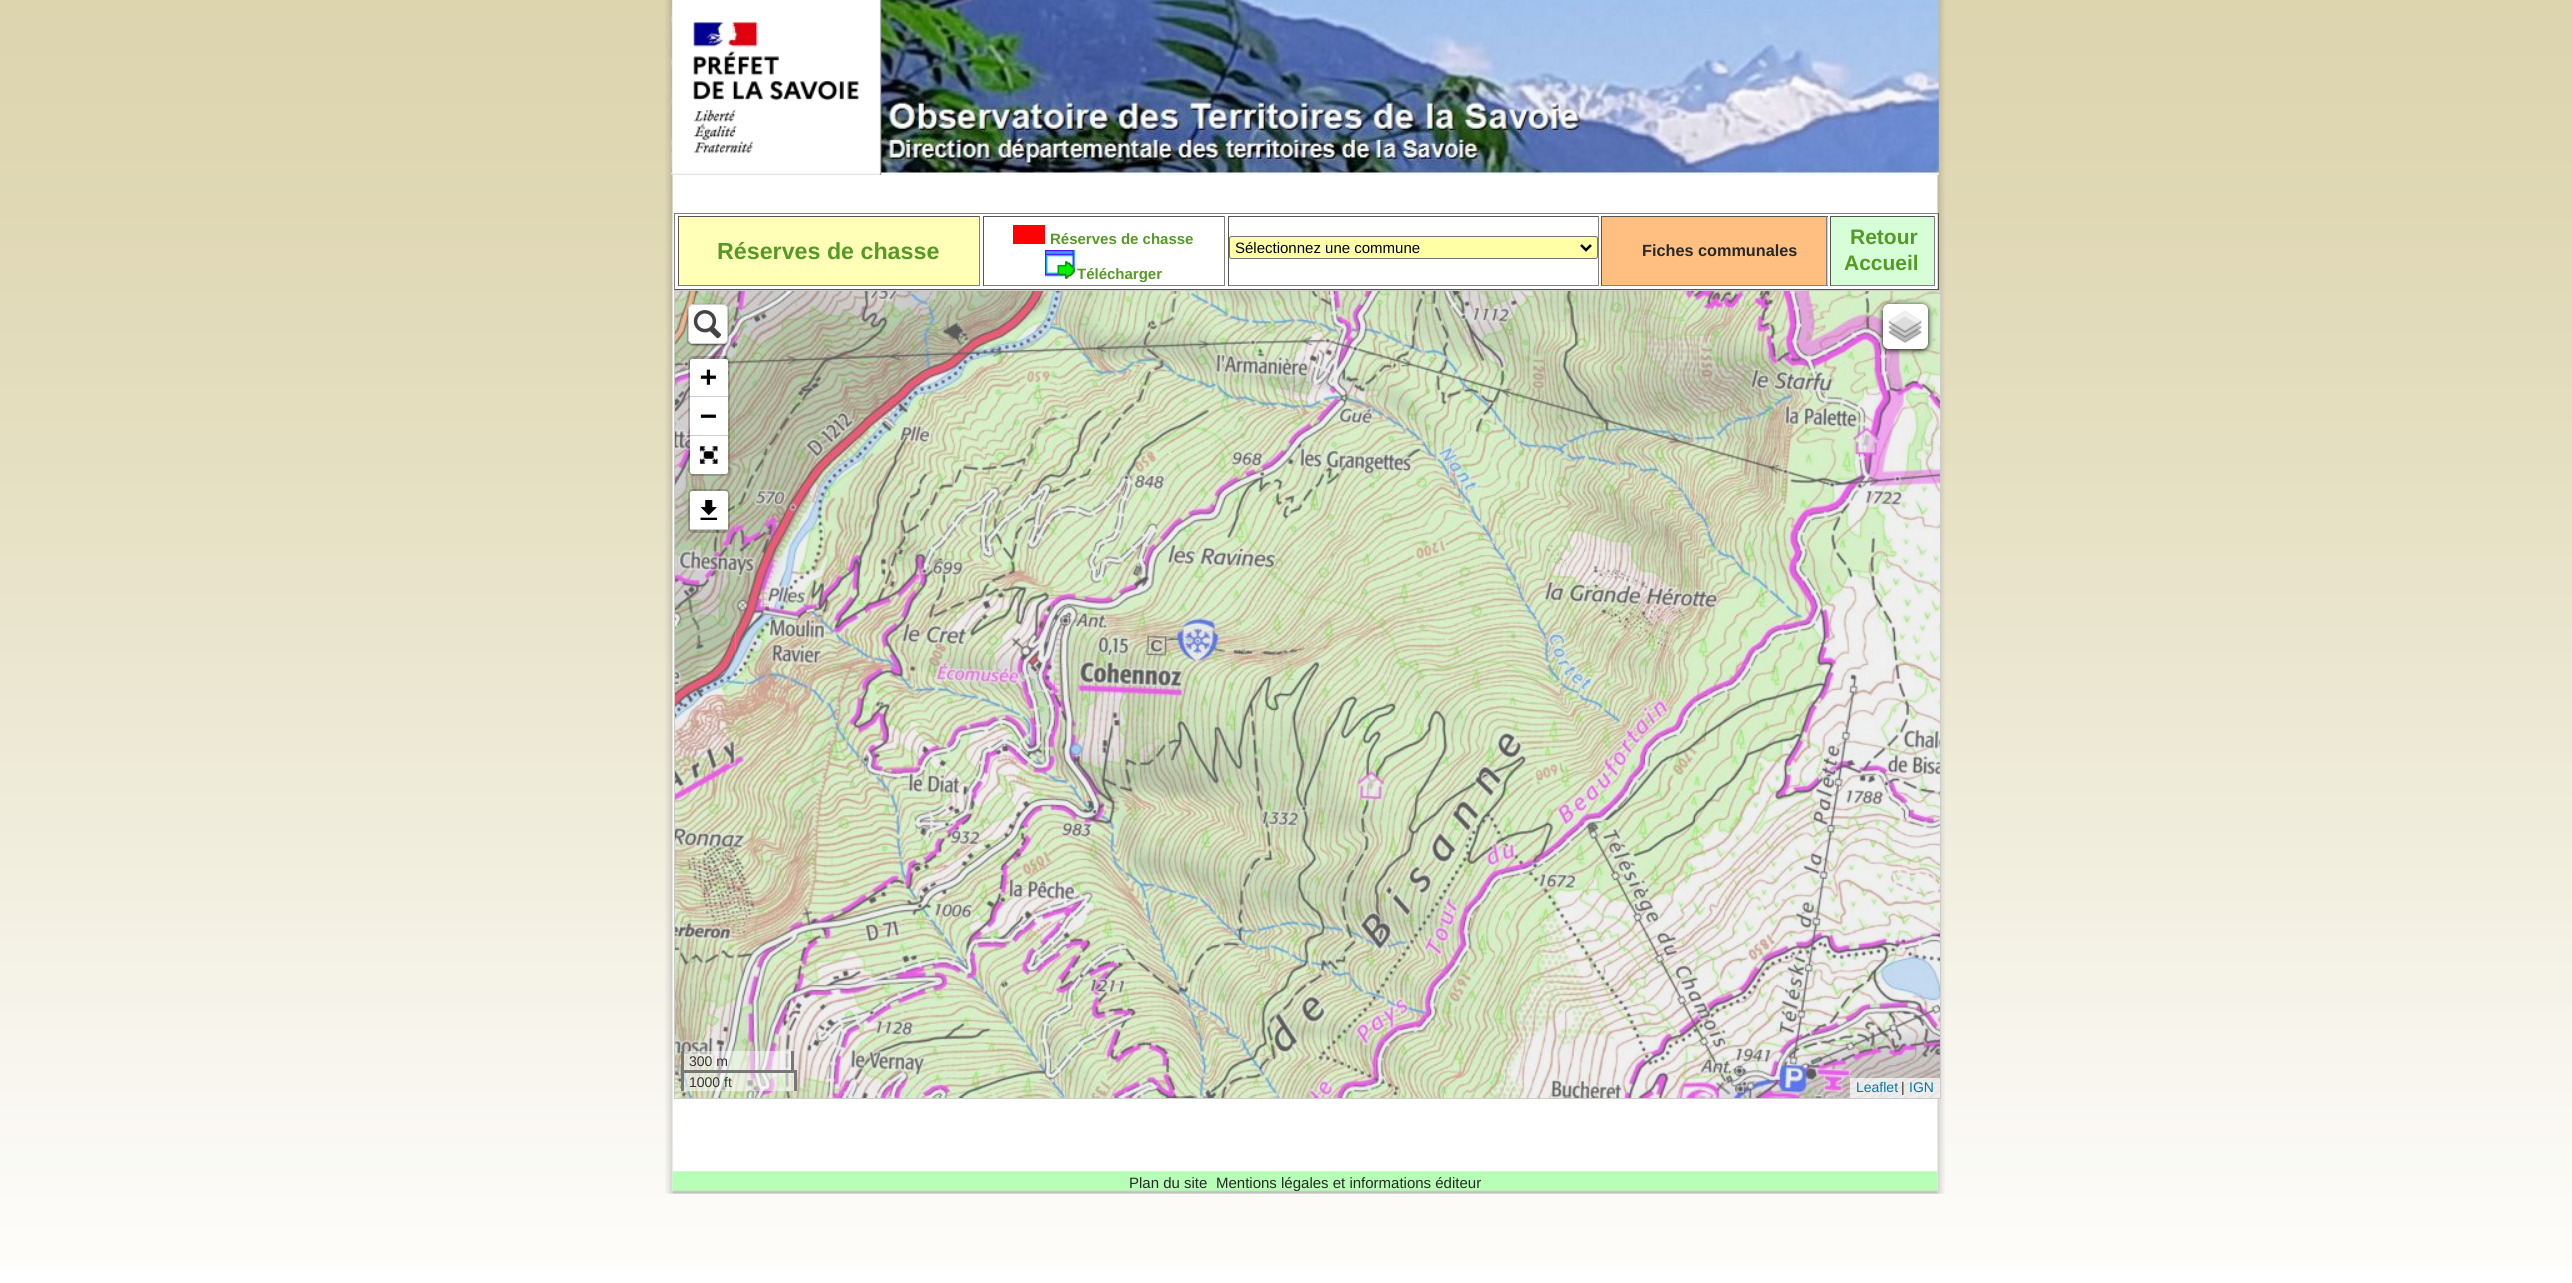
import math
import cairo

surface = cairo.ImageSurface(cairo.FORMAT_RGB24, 2572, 1283)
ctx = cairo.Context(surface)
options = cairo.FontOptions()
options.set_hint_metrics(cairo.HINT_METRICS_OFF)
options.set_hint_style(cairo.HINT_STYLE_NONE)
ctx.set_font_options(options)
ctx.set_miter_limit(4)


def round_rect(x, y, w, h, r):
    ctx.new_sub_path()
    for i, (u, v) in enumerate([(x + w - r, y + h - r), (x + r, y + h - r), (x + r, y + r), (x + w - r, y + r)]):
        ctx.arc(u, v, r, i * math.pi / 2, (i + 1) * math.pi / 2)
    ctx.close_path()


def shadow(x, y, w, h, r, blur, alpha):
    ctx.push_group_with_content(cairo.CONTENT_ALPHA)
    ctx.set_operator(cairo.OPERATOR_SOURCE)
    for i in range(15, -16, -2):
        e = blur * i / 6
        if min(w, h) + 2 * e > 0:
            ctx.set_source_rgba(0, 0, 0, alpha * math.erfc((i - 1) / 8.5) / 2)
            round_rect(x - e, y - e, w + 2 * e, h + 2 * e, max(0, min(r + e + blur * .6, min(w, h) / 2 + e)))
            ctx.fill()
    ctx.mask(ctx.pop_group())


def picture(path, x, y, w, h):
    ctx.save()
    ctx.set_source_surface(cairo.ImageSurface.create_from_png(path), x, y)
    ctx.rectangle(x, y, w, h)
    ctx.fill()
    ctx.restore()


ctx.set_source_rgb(1, 1, 1)
ctx.paint()
picture("img1.png", 0, 0, 2572, 1268)
picture("img2.png", 665, 0, 1280, 1194)
picture("img3.png", 671, 0, 1268, 175)
picture("img4.png", 671, 0, 211, 175)
ctx.set_source_rgb(0.502, 0.502, 0.502)
ctx.rectangle(674, 213, 1265, 1)
ctx.fill()
ctx.set_source_rgb(0.333, 0.333, 0.333)
ctx.rectangle(1938, 213, 1, 77)
ctx.fill()
ctx.rectangle(674, 289, 1265, 1)
ctx.fill()
ctx.set_source_rgb(0.502, 0.502, 0.502)
ctx.rectangle(674, 213, 1, 77)
ctx.fill()
ctx.set_source_rgb(1, 1, 0.718)
ctx.rectangle(679, 217, 300, 68)
ctx.fill()
ctx.set_source_rgb(0.333, 0.333, 0.333)
ctx.rectangle(678, 216, 302, 1)
ctx.fill()
ctx.set_source_rgb(0.502, 0.502, 0.502)
ctx.rectangle(979, 216, 1, 70)
ctx.fill()
ctx.rectangle(678, 285, 302, 1)
ctx.fill()
ctx.set_source_rgb(0.333, 0.333, 0.333)
ctx.rectangle(678, 216, 1, 70)
ctx.fill()
ctx.select_font_face("Liberation Sans", cairo.FONT_SLANT_NORMAL, cairo.FONT_WEIGHT_BOLD)
ctx.set_font_size(23.25)
ctx.set_source_rgb(0.337, 0.6, 0.149)
ctx.move_to(717, 259)
ctx.show_text("Réserves de chasse")
ctx.set_source_rgb(0.333, 0.333, 0.333)
ctx.rectangle(983, 216, 242, 1)
ctx.fill()
ctx.set_source_rgb(0.502, 0.502, 0.502)
ctx.rectangle(1224, 216, 1, 70)
ctx.fill()
ctx.rectangle(983, 285, 242, 1)
ctx.fill()
ctx.set_source_rgb(0.333, 0.333, 0.333)
ctx.rectangle(983, 216, 1, 70)
ctx.fill()
ctx.set_source_rgb(0.988, 0.008, 0.016)
ctx.rectangle(1013, 225, 32, 19)
ctx.fill()
ctx.set_font_size(15)
ctx.set_source_rgb(0.337, 0.6, 0.149)
ctx.move_to(1050, 244)
ctx.show_text("Réserves de chasse")
picture("img5.png", 1045, 250, 31, 29)
ctx.move_to(1077, 279)
ctx.show_text("Télécharger")
ctx.set_source_rgb(0.333, 0.333, 0.333)
ctx.rectangle(1228, 216, 371, 1)
ctx.fill()
ctx.set_source_rgb(0.502, 0.502, 0.502)
ctx.rectangle(1598, 216, 1, 70)
ctx.fill()
ctx.rectangle(1228, 285, 371, 1)
ctx.fill()
ctx.set_source_rgb(0.333, 0.333, 0.333)
ctx.rectangle(1228, 216, 1, 70)
ctx.fill()
ctx.set_source_rgb(1, 1, 0.647)
round_rect(1229.5, 236.5, 368, 22, 2)
ctx.fill_preserve()
ctx.set_source_rgb(0.463, 0.463, 0.463)
ctx.set_line_width(1)
ctx.stroke()
ctx.new_path()
ctx.move_to(1581, 245)
ctx.line_to(1586, 250)
ctx.line_to(1591, 245)
ctx.set_source_rgb(0, 0, 0)
ctx.set_line_width(2.5)
ctx.stroke()
ctx.select_font_face("Liberation Sans")
ctx.move_to(1235, 253)
ctx.show_text("Sélectionnez une commune")
ctx.set_source_rgb(1, 0.749, 0.502)
ctx.rectangle(1602, 217, 226, 68)
ctx.fill()
ctx.set_source_rgb(0.333, 0.333, 0.333)
ctx.rectangle(1601, 216, 227, 1)
ctx.fill()
ctx.set_source_rgb(0.502, 0.502, 0.502)
ctx.rectangle(1826, 216, 1, 70)
ctx.fill()
ctx.rectangle(1601, 285, 227, 1)
ctx.fill()
ctx.set_source_rgb(0.333, 0.333, 0.333)
ctx.rectangle(1601, 216, 1, 70)
ctx.fill()
ctx.select_font_face("Liberation Sans", cairo.FONT_SLANT_NORMAL, cairo.FONT_WEIGHT_BOLD)
ctx.set_font_size(16.25)
ctx.set_source_rgb(0.157, 0.157, 0.157)
ctx.move_to(1642, 256)
ctx.show_text("Fiches communales")
ctx.set_source_rgb(0.843, 1, 0.843)
ctx.rectangle(1831, 217, 103, 68)
ctx.fill()
ctx.set_source_rgb(0.333, 0.333, 0.333)
ctx.rectangle(1830, 216, 105, 1)
ctx.fill()
ctx.set_source_rgb(0.502, 0.502, 0.502)
ctx.rectangle(1934, 216, 1, 70)
ctx.fill()
ctx.rectangle(1830, 285, 105, 1)
ctx.fill()
ctx.set_source_rgb(0.333, 0.333, 0.333)
ctx.rectangle(1830, 216, 1, 70)
ctx.fill()
ctx.set_font_size(21)
ctx.set_source_rgb(0.337, 0.6, 0.149)
ctx.move_to(1850, 244)
ctx.show_text("Retour")
ctx.move_to(1844, 270)
ctx.show_text("Accueil")
ctx.set_source_rgb(0.867, 0.867, 0.867)
ctx.rectangle(674.5, 290.5, 1266, 808)
ctx.fill_preserve()
ctx.set_source_rgb(0.8, 0.8, 0.8)
ctx.set_line_width(1)
ctx.stroke()
picture("img8.png", 1054, 291, 321, 259)
picture("img7.png", 734, 291, 321, 259)
picture("img6.png", 675, 291, 60, 259)
picture("img9.png", 1374, 291, 321, 259)
picture("img10.png", 1694, 291, 246, 259)
picture("img13.png", 1054, 550, 321, 320)
picture("img12.png", 734, 550, 321, 320)
picture("img11.png", 675, 550, 60, 320)
picture("img14.png", 1374, 550, 321, 320)
picture("img15.png", 1694, 550, 246, 320)
picture("img18.png", 1054, 870, 321, 228)
picture("img17.png", 734, 870, 321, 228)
picture("img16.png", 675, 870, 60, 228)
picture("img19.png", 1374, 870, 321, 228)
picture("img20.png", 1694, 870, 246, 228)
ctx.set_source_rgb(0, 0, 0)
shadow(1883, 305, 45, 45, 6, 3, 1)
ctx.set_source_rgb(1, 1, 1)
round_rect(1883, 304, 45, 45, 6)
ctx.fill()
picture("img21.png", 1882, 308, 40, 35)
ctx.set_source_rgb(0, 0, 0)
shadow(688, 305, 40, 40, 5, 1, 0.65)
ctx.set_source_rgb(1, 1, 1)
round_rect(688, 304, 40, 40, 5)
ctx.fill()
picture("img22.png", 693, 310, 29, 29)
round_rect(688.5, 304.5, 39, 39, 4.5)
ctx.set_source_rgb(0.8, 0.8, 0.8)
ctx.stroke()
round_rect(689.5, 357.5, 39, 117, 3.5)
ctx.set_source_rgba(0, 0, 0, 0.2)
ctx.set_line_width(3)
ctx.stroke()
ctx.set_source_rgb(1, 1, 1)
ctx.new_path()
ctx.move_to(692.5, 359)
ctx.line_to(725.5, 359)
ctx.curve_to(727, 359, 728, 360, 728, 361.5)
ctx.line_to(728, 398)
ctx.line_to(690, 398)
ctx.line_to(690, 361.5)
ctx.curve_to(690, 360, 691, 359, 692.5, 359)
ctx.close_path()
ctx.fill()
ctx.set_source_rgb(0.8, 0.8, 0.8)
ctx.rectangle(690, 396, 38, 1)
ctx.fill()
ctx.select_font_face("DejaVu Sans Mono", cairo.FONT_SLANT_NORMAL, cairo.FONT_WEIGHT_BOLD)
ctx.set_font_size(28)
ctx.set_source_rgb(0, 0, 0)
ctx.move_to(700, 386)
ctx.show_text("+")
ctx.set_source_rgb(1, 1, 1)
ctx.rectangle(690, 398, 38, 37)
ctx.fill()
ctx.set_source_rgb(0.8, 0.8, 0.8)
ctx.rectangle(690, 435, 38, 1)
ctx.fill()
ctx.set_source_rgb(0, 0, 0)
ctx.move_to(700, 425)
ctx.show_text("−")
ctx.set_source_rgb(1, 1, 1)
ctx.new_path()
ctx.move_to(690, 436)
ctx.line_to(728, 436)
ctx.line_to(728, 471.5)
ctx.curve_to(728, 473, 727, 474, 725.5, 474)
ctx.line_to(692.5, 474)
ctx.curve_to(691, 474, 690, 473, 690, 471.5)
ctx.close_path()
ctx.fill()
picture("img23.png", 699, 446, 19, 18)
round_rect(689.5, 490.5, 39, 41, 3.5)
ctx.set_source_rgba(0, 0, 0, 0.2)
ctx.stroke()
ctx.set_source_rgb(1, 1, 1)
ctx.new_path()
ctx.move_to(692.5, 491)
ctx.line_to(725.5, 491)
ctx.curve_to(727, 491, 728, 492, 728, 493.5)
ctx.line_to(728, 530)
ctx.line_to(690, 530)
ctx.line_to(690, 493.5)
ctx.curve_to(690, 492, 691, 491, 692.5, 491)
ctx.close_path()
ctx.fill()
picture("img24.png", 700, 500, 17, 20)
ctx.set_source_rgb(0.8, 0.8, 0.8)
ctx.rectangle(690, 529, 38, 1)
ctx.fill()
ctx.set_source_rgba(1, 1, 1, 0.5)
ctx.rectangle(684, 1051, 107, 19)
ctx.fill()
ctx.set_source_rgb(0.467, 0.467, 0.467)
ctx.rectangle(791, 1051, 3, 22)
ctx.fill()
ctx.rectangle(681, 1051, 3, 22)
ctx.fill()
ctx.select_font_face("Liberation Sans")
ctx.set_font_size(14)
ctx.set_source_rgb(0.2, 0.2, 0.2)
ctx.move_to(689, 1066)
ctx.show_text("300 m")
ctx.set_source_rgba(1, 1, 1, 0.5)
ctx.rectangle(684, 1073, 110, 18)
ctx.fill()
ctx.set_source_rgb(0.467, 0.467, 0.467)
ctx.rectangle(681, 1070, 115, 3)
ctx.fill()
ctx.rectangle(794, 1070, 3, 21)
ctx.fill()
ctx.rectangle(681, 1070, 3, 21)
ctx.fill()
ctx.set_source_rgb(0.2, 0.2, 0.2)
ctx.move_to(689, 1087)
ctx.show_text("1000 ft")
ctx.set_source_rgba(1, 1, 1, 0.7)
ctx.rectangle(1850, 1078, 90, 20)
ctx.fill()
ctx.set_source_rgb(0, 0.471, 0.659)
ctx.move_to(1856, 1092)
ctx.show_text("Leaflet")
ctx.set_source_rgb(0.2, 0.2, 0.2)
ctx.move_to(1901, 1092)
ctx.show_text("|")
ctx.set_source_rgb(0, 0.471, 0.659)
ctx.move_to(1909, 1092)
ctx.show_text("IGN")
picture("img25.png", 672, 1171, 1266, 23)
ctx.set_font_size(15)
ctx.set_source_rgb(0.157, 0.157, 0.157)
ctx.move_to(1129, 1188)
ctx.show_text("Plan du site")
ctx.move_to(1216, 1188)
ctx.show_text("Mentions légales et informations éditeur")
surface.write_to_png("page.png")
